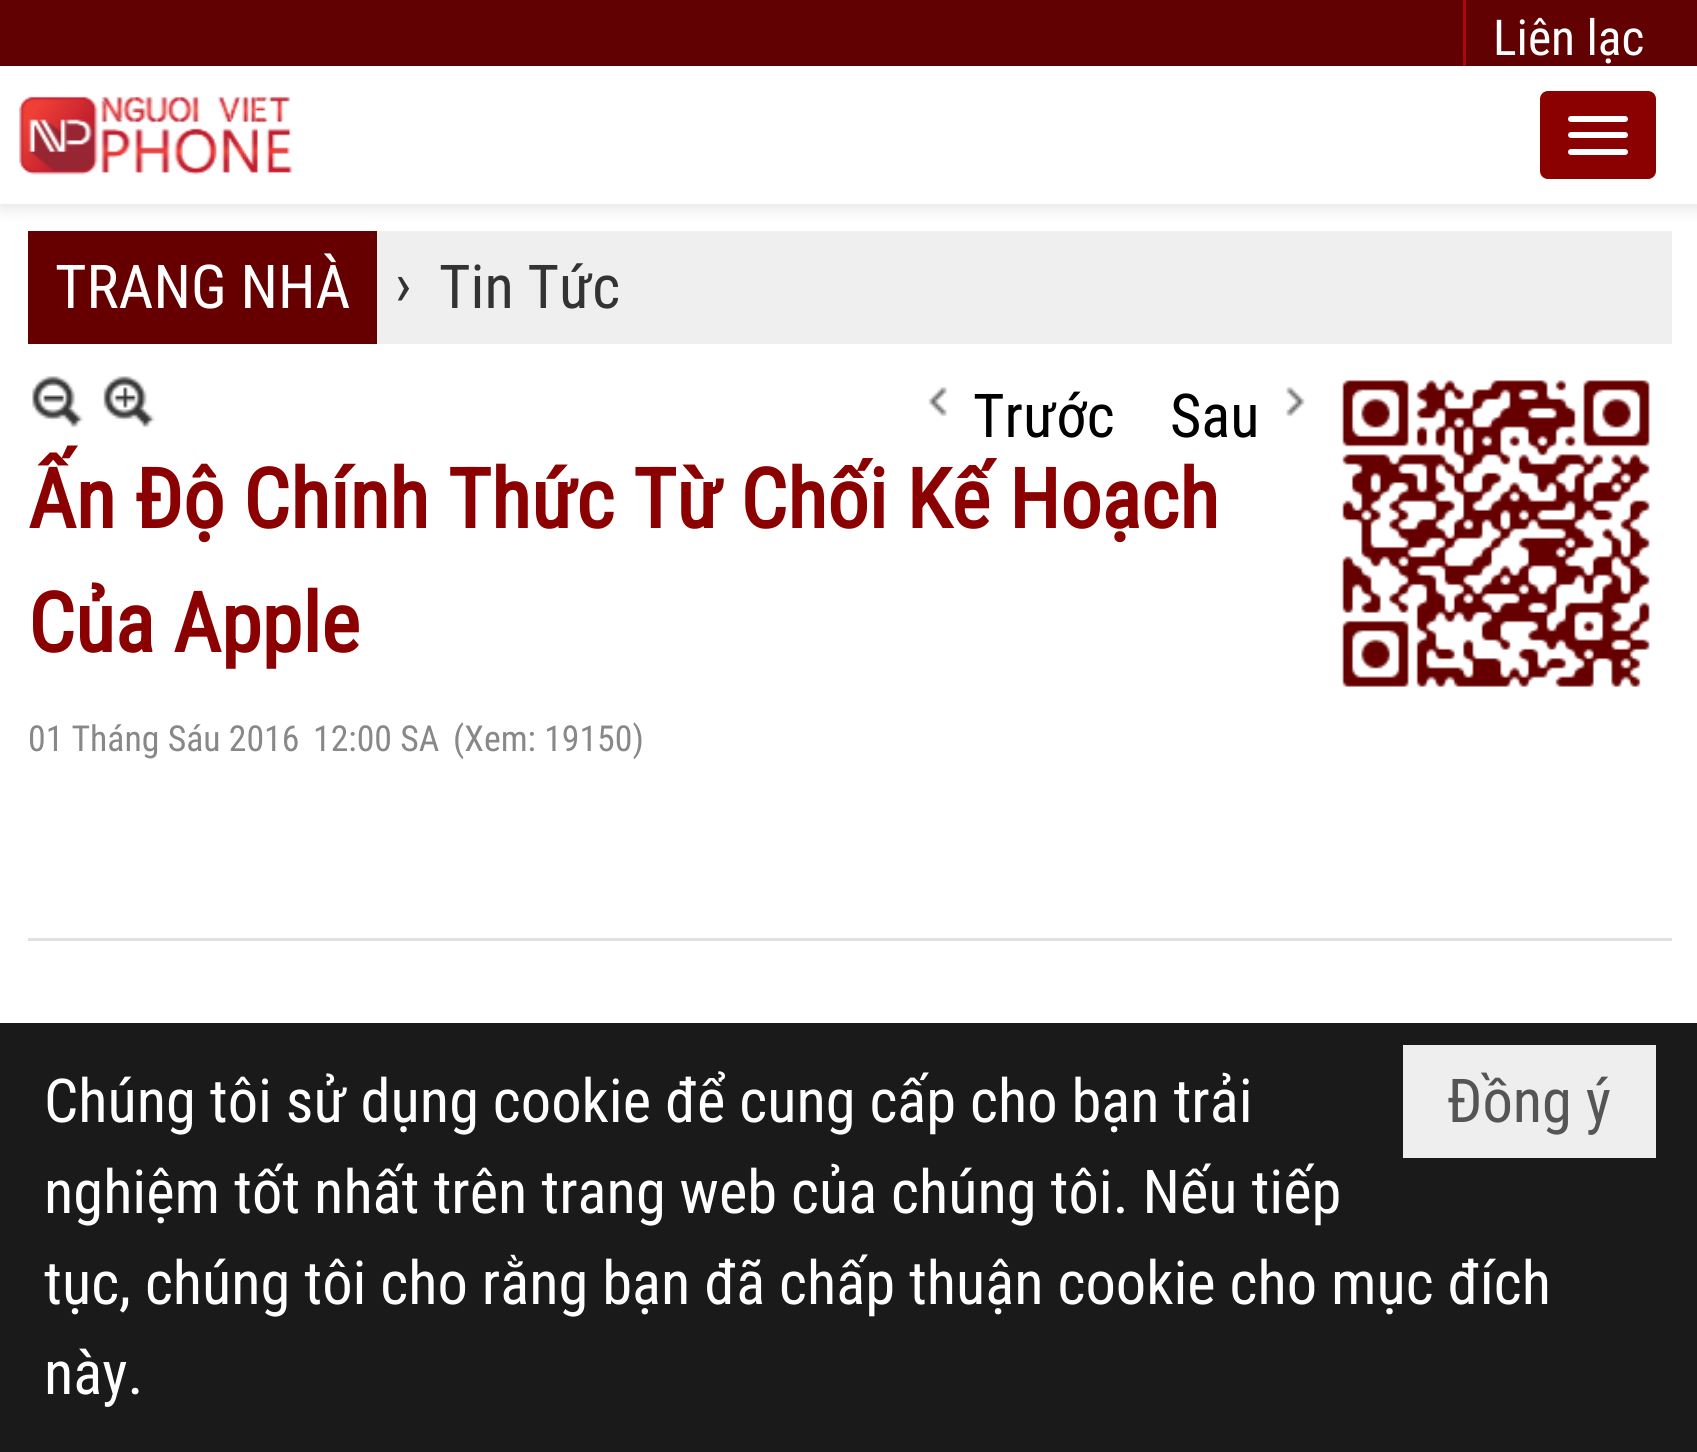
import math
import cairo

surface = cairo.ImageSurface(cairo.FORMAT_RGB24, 1697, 1452)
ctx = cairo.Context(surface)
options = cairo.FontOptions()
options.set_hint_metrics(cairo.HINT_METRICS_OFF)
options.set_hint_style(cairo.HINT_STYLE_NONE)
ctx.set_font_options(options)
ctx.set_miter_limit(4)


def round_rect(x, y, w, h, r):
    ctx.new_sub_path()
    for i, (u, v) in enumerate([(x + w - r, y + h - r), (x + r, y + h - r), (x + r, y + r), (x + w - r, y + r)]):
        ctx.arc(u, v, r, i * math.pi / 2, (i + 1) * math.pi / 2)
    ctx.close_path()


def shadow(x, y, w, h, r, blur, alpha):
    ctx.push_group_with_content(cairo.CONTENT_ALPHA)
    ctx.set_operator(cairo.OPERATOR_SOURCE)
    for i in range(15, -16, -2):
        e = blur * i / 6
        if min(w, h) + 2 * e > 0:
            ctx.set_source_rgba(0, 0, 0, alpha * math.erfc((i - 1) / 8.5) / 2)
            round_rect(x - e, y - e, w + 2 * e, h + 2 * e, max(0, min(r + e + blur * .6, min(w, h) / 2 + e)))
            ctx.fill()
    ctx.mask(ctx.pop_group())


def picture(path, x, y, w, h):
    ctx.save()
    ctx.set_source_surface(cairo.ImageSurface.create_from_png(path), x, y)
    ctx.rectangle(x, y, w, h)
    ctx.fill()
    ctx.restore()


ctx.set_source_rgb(1, 1, 1)
ctx.paint()
ctx.set_source_rgb(0.384, 0.004, 0.004)
ctx.rectangle(0, 0, 1697, 66)
ctx.fill()
ctx.set_source_rgb(0.671, 0.035, 0.035)
ctx.rectangle(1463, 0, 3, 74)
ctx.fill()
ctx.select_font_face("Roboto Condensed")
ctx.set_font_size(49.5)
ctx.set_source_rgb(1, 1, 1)
ctx.move_to(1493, 55)
ctx.show_text("Liên lạc")
ctx.set_source_rgb(0, 0, 0)
shadow(0, 72, 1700, 137, 0, 7, 0.1)
ctx.set_source_rgb(1, 1, 1)
ctx.rectangle(0, 66, 1697, 138)
ctx.fill()
picture("img1.png", 19, 96, 274, 79)
ctx.set_source_rgb(0.545, 0, 0)
round_rect(1540, 91, 116, 88, 8)
ctx.fill()
ctx.set_source_rgb(1, 1, 1)
round_rect(1568, 116, 60, 6, 3)
ctx.fill()
round_rect(1568, 132, 60, 6, 3)
ctx.fill()
round_rect(1568, 149, 60, 6, 3)
ctx.fill()
ctx.set_source_rgb(0.937, 0.937, 0.937)
ctx.rectangle(377, 231, 1295, 113)
ctx.fill()
ctx.set_source_rgb(0.4, 0, 0)
ctx.rectangle(28, 231, 349, 113)
ctx.fill()
ctx.set_font_size(60.5)
ctx.set_source_rgb(1, 1, 1)
ctx.move_to(55, 308)
ctx.show_text("TRANG NHÀ")
ctx.set_source_rgb(0.2, 0.2, 0.2)
ctx.move_to(395, 305)
ctx.show_text("›")
ctx.move_to(439, 308)
ctx.show_text("Tin Tức")
ctx.set_source_rgb(0.882, 0.882, 0.882)
ctx.rectangle(28, 938, 1644, 3)
ctx.fill()
picture("img2.png", 32, 376, 52, 52)
picture("img3.png", 103, 376, 52, 52)
picture("img4.png", 928, 387, 19, 30)
ctx.set_source_rgb(0, 0, 0)
ctx.move_to(973, 437)
ctx.show_text("Trước")
picture("img5.png", 1286, 387, 19, 30)
ctx.move_to(1170, 437)
ctx.show_text("Sau")
picture("img6.png", 1342, 380, 308, 307)
ctx.select_font_face("Roboto Condensed", cairo.FONT_SLANT_NORMAL, cairo.FONT_WEIGHT_BOLD)
ctx.set_font_size(82.5)
ctx.set_source_rgb(0.545, 0, 0)
ctx.move_to(28, 528)
ctx.show_text("Ấn Độ Chính Thức Từ Chối Kế Hoạch")
ctx.move_to(28, 652)
ctx.show_text("Của Apple")
ctx.select_font_face("Roboto Condensed")
ctx.set_font_size(35.75)
ctx.set_source_rgb(0.533, 0.533, 0.533)
ctx.move_to(28, 751)
ctx.show_text("01 Tháng Sáu 2016")
ctx.move_to(313, 751)
ctx.show_text("12:00 SA")
ctx.move_to(453, 751)
ctx.show_text("(Xem: 19150)")
ctx.set_source_rgb(0.102, 0.102, 0.102)
ctx.rectangle(0, 1023, 1697, 429)
ctx.fill()
ctx.set_font_size(60.5)
ctx.set_source_rgb(1, 1, 1)
ctx.move_to(44, 1122)
ctx.show_text("Chúng tôi sử dụng cookie để cung cấp cho bạn trải")
ctx.move_to(44, 1213)
ctx.show_text("nghiệm tốt nhất trên trang web của chúng tôi. Nếu tiếp")
ctx.move_to(44, 1304)
ctx.show_text("tục, chúng tôi cho rằng bạn đã chấp thuận cookie cho mục đích")
ctx.move_to(44, 1394)
ctx.show_text("này.")
ctx.set_source_rgb(0.933, 0.933, 0.933)
ctx.rectangle(1403, 1045, 253, 113)
ctx.fill()
ctx.set_source_rgb(0.333, 0.333, 0.333)
ctx.move_to(1447, 1122)
ctx.show_text("Đồng ý")
surface.write_to_png("page.png")
